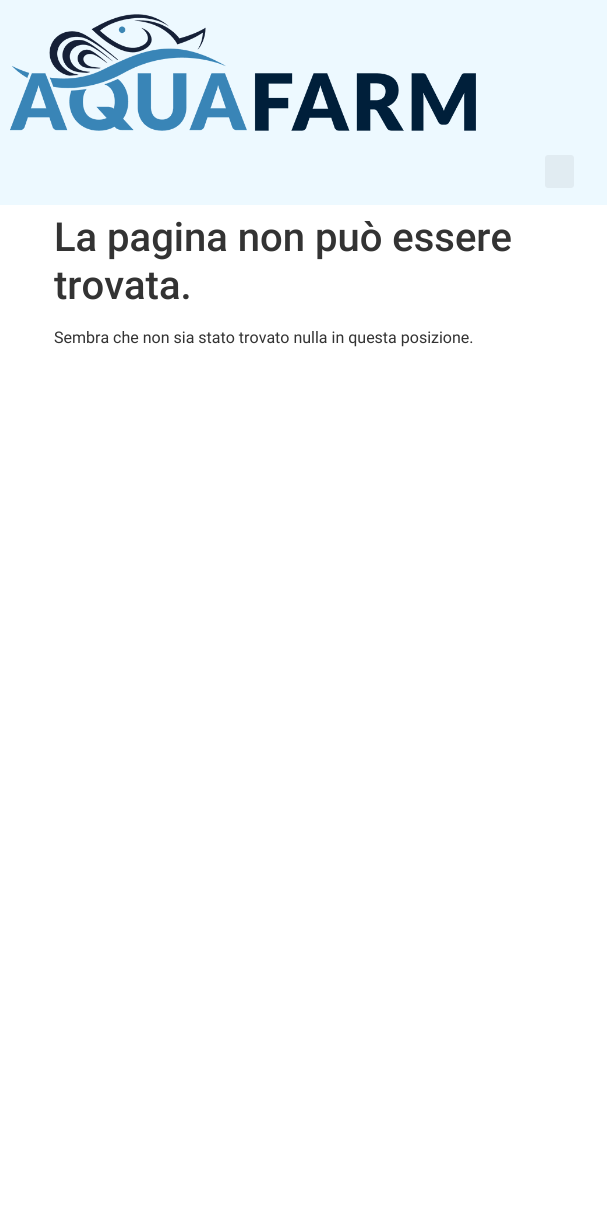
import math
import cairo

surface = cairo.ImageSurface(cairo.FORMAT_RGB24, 607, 1219)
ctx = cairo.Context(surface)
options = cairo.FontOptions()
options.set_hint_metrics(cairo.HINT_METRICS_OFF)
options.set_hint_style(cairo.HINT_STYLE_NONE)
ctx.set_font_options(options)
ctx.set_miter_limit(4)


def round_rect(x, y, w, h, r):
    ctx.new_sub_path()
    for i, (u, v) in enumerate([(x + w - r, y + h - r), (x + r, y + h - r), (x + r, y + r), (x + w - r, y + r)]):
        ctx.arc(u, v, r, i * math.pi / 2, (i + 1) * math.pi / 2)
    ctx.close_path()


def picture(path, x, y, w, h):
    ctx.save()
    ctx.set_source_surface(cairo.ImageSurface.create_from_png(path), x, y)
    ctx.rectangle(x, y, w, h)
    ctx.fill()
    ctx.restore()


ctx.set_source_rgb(1, 1, 1)
ctx.paint()
ctx.set_source_rgb(0.929, 0.973, 1)
ctx.rectangle(0, 0, 607, 205)
ctx.fill()
picture("img1.png", 10, 14, 466, 117)
ctx.set_source_rgb(0.882, 0.925, 0.949)
round_rect(545, 155, 29, 33, 3)
ctx.fill()
ctx.select_font_face("Roboto Medium")
ctx.set_font_size(40)
ctx.set_source_rgb(0.2, 0.2, 0.2)
ctx.move_to(54, 251)
ctx.show_text("La pagina non può essere")
ctx.move_to(54, 299)
ctx.show_text("trovata.")
ctx.select_font_face("Roboto")
ctx.set_font_size(16)
ctx.move_to(54, 343)
ctx.show_text("Sembra che non sia stato trovato nulla in questa posizione.")
surface.write_to_png("page.png")
